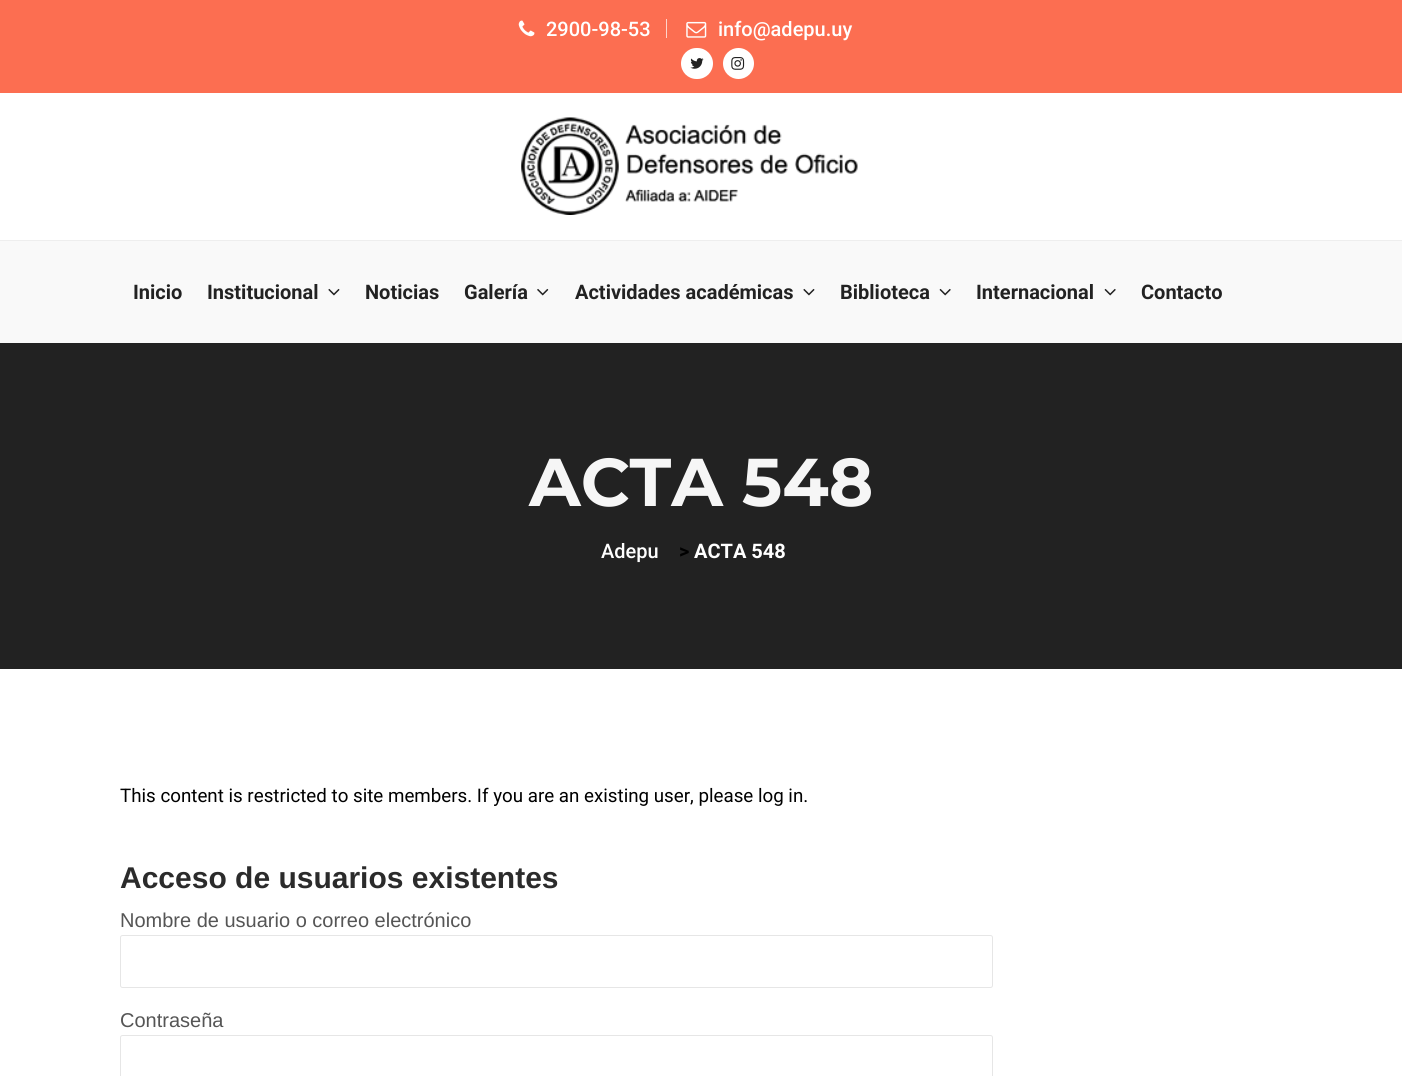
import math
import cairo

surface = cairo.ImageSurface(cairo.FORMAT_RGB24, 1402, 1076)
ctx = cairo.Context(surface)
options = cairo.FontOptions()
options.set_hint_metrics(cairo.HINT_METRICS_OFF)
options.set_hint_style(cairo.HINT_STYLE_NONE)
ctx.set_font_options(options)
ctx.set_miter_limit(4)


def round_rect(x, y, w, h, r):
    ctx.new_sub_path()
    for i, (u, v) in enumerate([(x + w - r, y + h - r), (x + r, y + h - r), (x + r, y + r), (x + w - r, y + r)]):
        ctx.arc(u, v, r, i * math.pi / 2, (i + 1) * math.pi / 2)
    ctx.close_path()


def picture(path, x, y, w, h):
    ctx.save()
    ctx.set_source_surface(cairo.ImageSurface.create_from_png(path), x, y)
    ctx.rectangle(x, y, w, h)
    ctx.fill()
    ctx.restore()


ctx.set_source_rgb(1, 1, 1)
ctx.paint()
ctx.set_source_rgb(0.988, 0.431, 0.318)
ctx.rectangle(0, 0, 1402, 93)
ctx.fill()
picture("img1.png", 518, 20, 17, 17)
ctx.select_font_face("Roboto Medium")
ctx.set_font_size(20)
ctx.set_source_rgb(1, 1, 1)
ctx.move_to(546, 36)
ctx.show_text("2900-98-53")
ctx.set_source_rgb(0.996, 0.831, 0.796)
ctx.rectangle(666, 19, 1, 19)
ctx.fill()
picture("img2.png", 686, 21, 21, 17)
ctx.set_source_rgb(1, 1, 1)
ctx.move_to(718, 36)
ctx.show_text("info@adepu.uy")
round_rect(681, 48, 32, 31, 15.5)
ctx.fill()
picture("img3.png", 690, 58, 14, 11)
ctx.arc(738.5, 63.5, 15.5, 0, 2 * math.pi)
ctx.fill()
picture("img4.png", 731, 57, 14, 13)
picture("img5.png", 521, 117, 337, 98)
ctx.set_source_rgb(0.933, 0.933, 0.933)
ctx.rectangle(0, 240, 1402, 1)
ctx.fill()
ctx.set_source_rgb(0.973, 0.973, 0.973)
ctx.rectangle(0, 241, 1402, 102)
ctx.fill()
ctx.select_font_face("Roboto", cairo.FONT_SLANT_NORMAL, cairo.FONT_WEIGHT_BOLD)
ctx.set_source_rgb(0.133, 0.133, 0.133)
ctx.move_to(133, 299)
ctx.show_text("Inicio")
ctx.move_to(207, 299)
ctx.show_text("Institucional")
picture("img6.png", 328, 288, 12, 8)
ctx.move_to(365, 299)
ctx.show_text("Noticias")
ctx.move_to(464, 299)
ctx.show_text("Galería")
picture("img7.png", 537, 288, 12, 8)
ctx.move_to(575, 299)
ctx.show_text("Actividades académicas")
picture("img6.png", 803, 288, 12, 8)
ctx.move_to(840, 299)
ctx.show_text("Biblioteca")
picture("img8.png", 939, 288, 12, 8)
ctx.move_to(976, 299)
ctx.show_text("Internacional")
picture("img8.png", 1104, 288, 12, 8)
ctx.move_to(1141, 299)
ctx.show_text("Contacto")
ctx.rectangle(0, 343, 1402, 326)
ctx.fill()
ctx.select_font_face("Montserrat", cairo.FONT_SLANT_NORMAL, cairo.FONT_WEIGHT_BOLD)
ctx.set_font_size(67.5)
ctx.set_source_rgb(0.961, 0.961, 0.961)
ctx.move_to(529, 506)
ctx.show_text("ACTA 548")
ctx.select_font_face("Roboto Medium")
ctx.set_font_size(20)
ctx.set_source_rgb(1, 1, 1)
ctx.move_to(601, 558)
ctx.show_text("Adepu")
ctx.select_font_face("Roboto", cairo.FONT_SLANT_NORMAL, cairo.FONT_WEIGHT_BOLD)
ctx.set_source_rgb(0, 0, 0)
ctx.move_to(679, 558)
ctx.show_text(">")
ctx.set_source_rgb(1, 1, 1)
ctx.move_to(694, 558)
ctx.show_text("ACTA 548")
ctx.select_font_face("Roboto")
ctx.set_font_size(18.75)
ctx.set_source_rgb(0, 0, 0)
ctx.move_to(120, 802)
ctx.show_text("This content is restricted to site members. If you are an existing user, please log in.")
ctx.select_font_face("Liberation Sans", cairo.FONT_SLANT_NORMAL, cairo.FONT_WEIGHT_BOLD)
ctx.set_font_size(30)
ctx.set_source_rgb(0.169, 0.169, 0.169)
ctx.move_to(120, 888)
ctx.show_text("Acceso de usuarios existentes")
ctx.select_font_face("Liberation Sans")
ctx.set_font_size(20)
ctx.set_source_rgb(0.333, 0.333, 0.333)
ctx.move_to(120, 927)
ctx.show_text("Nombre de usuario o correo electrónico")
round_rect(120.5, 935.5, 872, 52, 2)
ctx.set_source_rgb(0.902, 0.902, 0.902)
ctx.set_line_width(1)
ctx.stroke()
ctx.set_source_rgb(0.333, 0.333, 0.333)
ctx.move_to(120, 1027)
ctx.show_text("Contraseña")
round_rect(120.5, 1035.5, 872, 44, 2)
ctx.set_source_rgb(0.902, 0.902, 0.902)
ctx.stroke()
surface.write_to_png("page.png")
